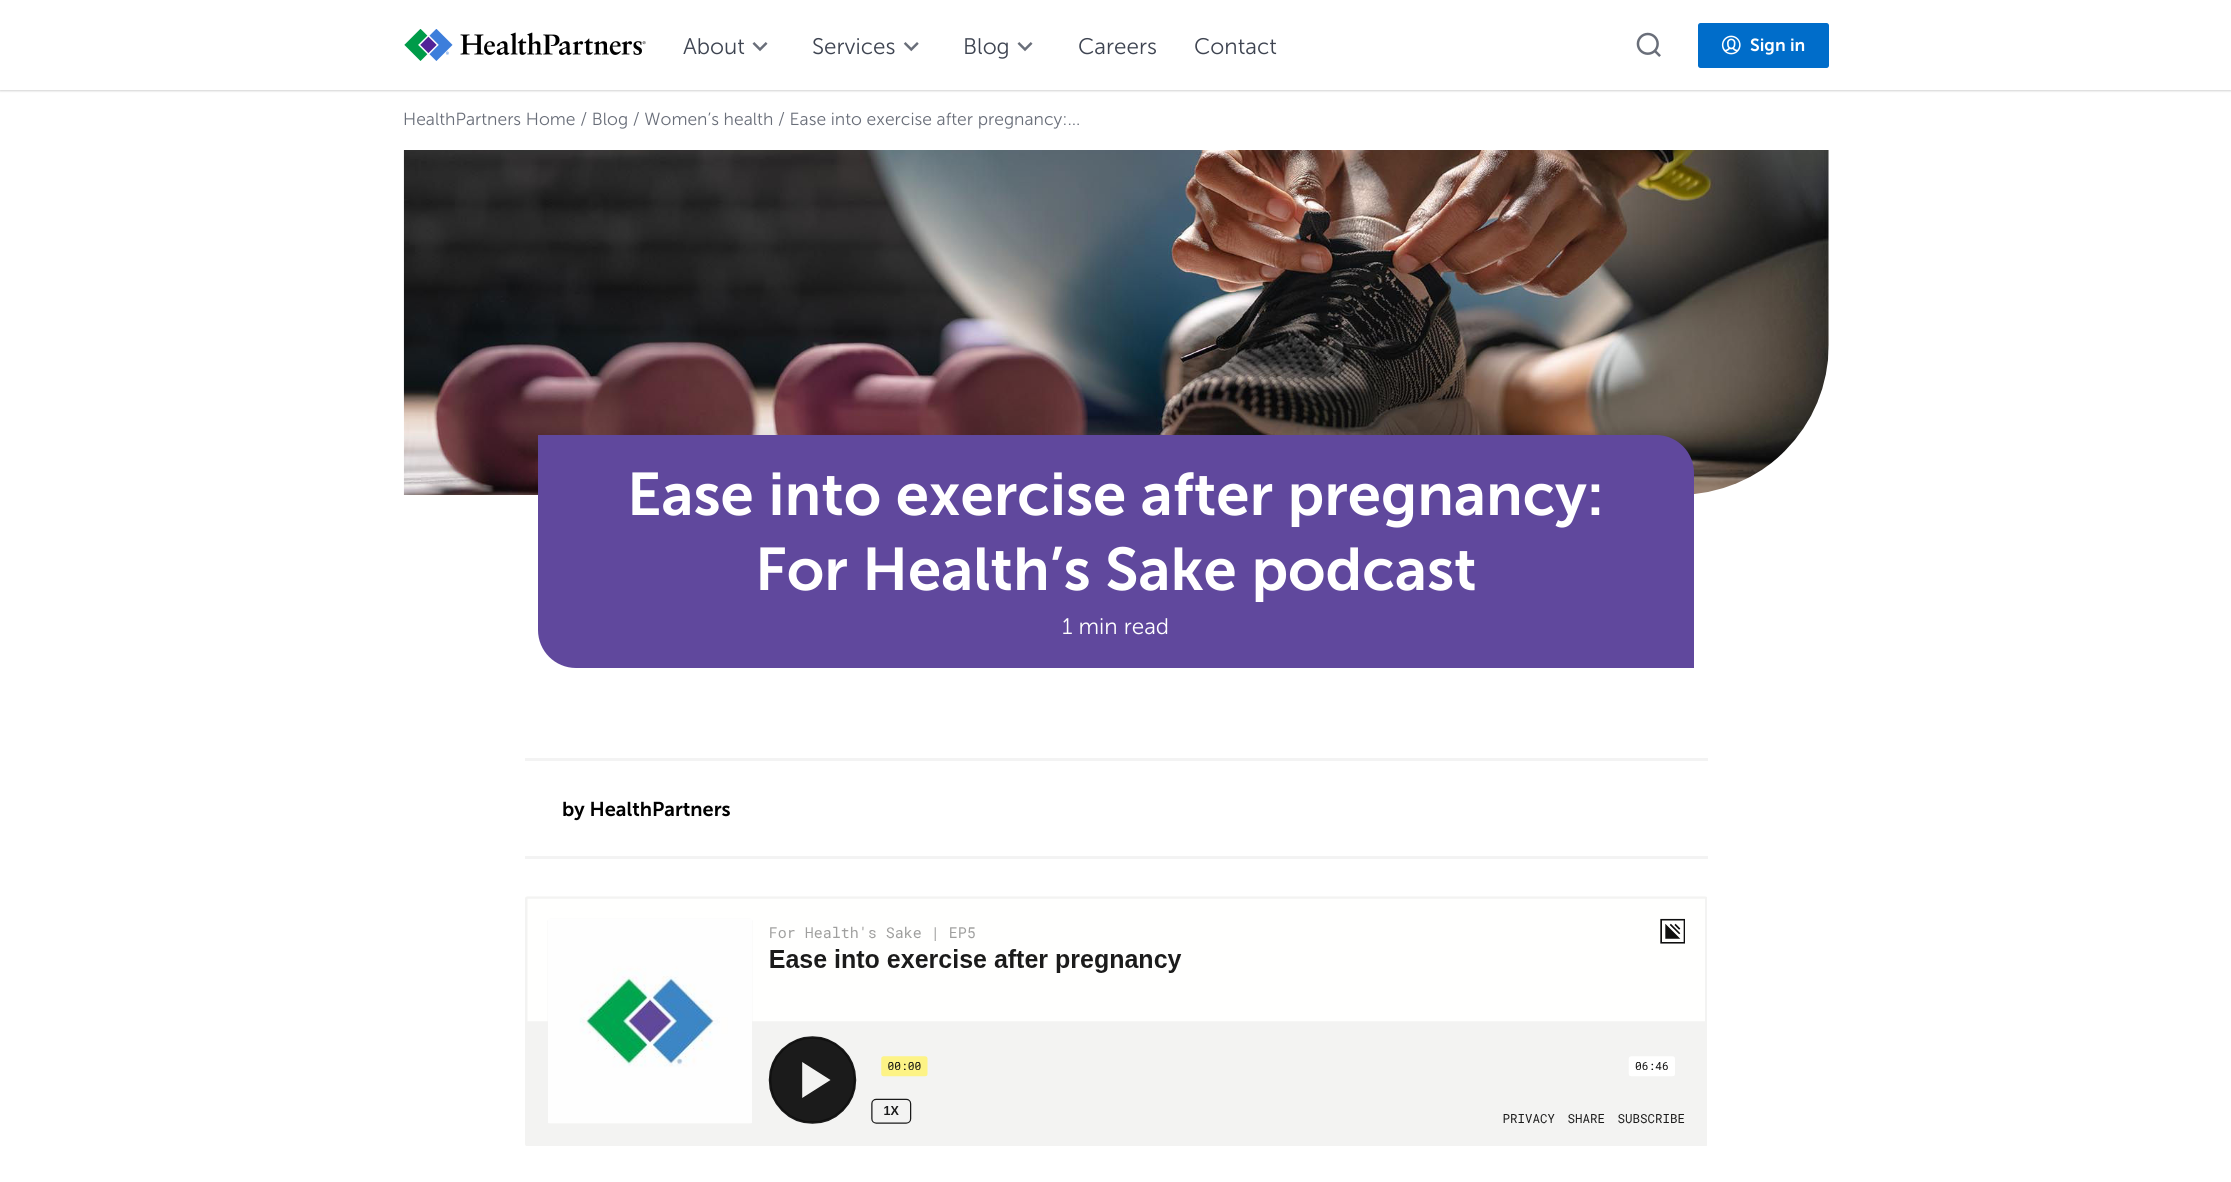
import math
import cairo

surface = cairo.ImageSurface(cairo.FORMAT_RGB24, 2231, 1182)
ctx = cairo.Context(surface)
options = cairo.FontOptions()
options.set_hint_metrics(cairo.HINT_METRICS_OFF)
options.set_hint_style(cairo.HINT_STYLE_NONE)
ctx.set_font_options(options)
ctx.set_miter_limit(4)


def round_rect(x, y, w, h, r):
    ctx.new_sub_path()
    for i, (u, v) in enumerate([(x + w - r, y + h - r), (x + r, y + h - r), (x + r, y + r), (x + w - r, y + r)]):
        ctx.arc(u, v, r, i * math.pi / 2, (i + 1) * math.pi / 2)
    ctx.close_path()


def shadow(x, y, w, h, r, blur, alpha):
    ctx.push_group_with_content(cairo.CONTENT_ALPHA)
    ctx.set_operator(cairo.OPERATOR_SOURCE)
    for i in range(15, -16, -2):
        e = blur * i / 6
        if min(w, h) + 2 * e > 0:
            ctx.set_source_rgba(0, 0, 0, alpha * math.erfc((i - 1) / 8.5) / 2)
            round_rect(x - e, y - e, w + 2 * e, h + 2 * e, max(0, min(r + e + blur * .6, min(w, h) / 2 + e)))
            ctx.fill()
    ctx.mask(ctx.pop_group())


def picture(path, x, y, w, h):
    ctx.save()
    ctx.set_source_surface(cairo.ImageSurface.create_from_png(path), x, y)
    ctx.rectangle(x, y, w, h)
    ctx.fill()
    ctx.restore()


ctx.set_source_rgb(1, 1, 1)
ctx.paint()
ctx.save()
ctx.rectangle(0, 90, 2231, 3)
ctx.clip()
ctx.set_source_rgb(0.659, 0.659, 0.659)
shadow(0, 1, 2231, 90, 0, 1, 0.5)
ctx.restore()
picture("img1.png", 404, 29, 242, 32)
ctx.select_font_face("Museo Sans Light")
ctx.set_font_size(22.5)
ctx.set_source_rgb(0.243, 0.267, 0.318)
ctx.move_to(683, 54)
ctx.show_text("About")
picture("img2.png", 752, 42, 16, 10)
ctx.move_to(812, 54)
ctx.show_text("Services")
picture("img3.png", 903, 42, 16, 10)
ctx.move_to(963, 54)
ctx.show_text("Blog")
picture("img2.png", 1017, 42, 16, 10)
ctx.move_to(1078, 54)
ctx.show_text("Careers")
ctx.move_to(1194, 54)
ctx.show_text("Contact")
picture("img4.png", 1636, 32, 25, 25)
ctx.set_source_rgb(0, 0.427, 0.792)
round_rect(1698, 23, 131, 45, 2.5)
ctx.fill()
picture("img5.png", 1721, 35, 20, 20)
ctx.select_font_face("Museo Sans SemiBold")
ctx.set_font_size(17.5)
ctx.set_source_rgb(1, 1, 1)
ctx.move_to(1750, 51)
ctx.show_text("Sign in")
ctx.select_font_face("Museo Sans Light")
ctx.set_source_rgb(0.412, 0.431, 0.475)
ctx.move_to(403, 125)
ctx.show_text("HealthPartners Home / Blog / Women’s health / Ease into exercise after pregnancy:...")
picture("img6.png", 403, 150, 1426, 345)
ctx.set_source_rgb(0.376, 0.282, 0.616)
ctx.new_path()
ctx.move_to(538, 435)
ctx.line_to(1656, 435)
ctx.curve_to(1677, 435, 1694, 452, 1694, 473)
ctx.line_to(1694, 668)
ctx.line_to(576, 668)
ctx.curve_to(555, 668, 538, 651, 538, 630)
ctx.close_path()
ctx.fill()
ctx.select_font_face("Museo Sans SemiBold")
ctx.set_font_size(60)
ctx.set_source_rgb(1, 1, 1)
ctx.move_to(627, 515)
ctx.show_text("Ease into exercise after pregnancy:")
ctx.move_to(755, 590)
ctx.show_text("For Health’s Sake podcast")
ctx.select_font_face("Museo Sans Light")
ctx.set_font_size(22.5)
ctx.move_to(1062, 634)
ctx.show_text("1 min read")
ctx.set_source_rgb(0.953, 0.953, 0.953)
ctx.rectangle(525, 758, 1183, 3)
ctx.fill()
ctx.rectangle(525, 856, 1183, 3)
ctx.fill()
ctx.select_font_face("Museo Sans SemiBold")
ctx.set_font_size(20)
ctx.set_source_rgb(0, 0, 0)
ctx.move_to(562, 816)
ctx.show_text("by HealthPartners")
picture("img7.png", 525, 896, 1182, 250)
surface.write_to_png("page.png")
